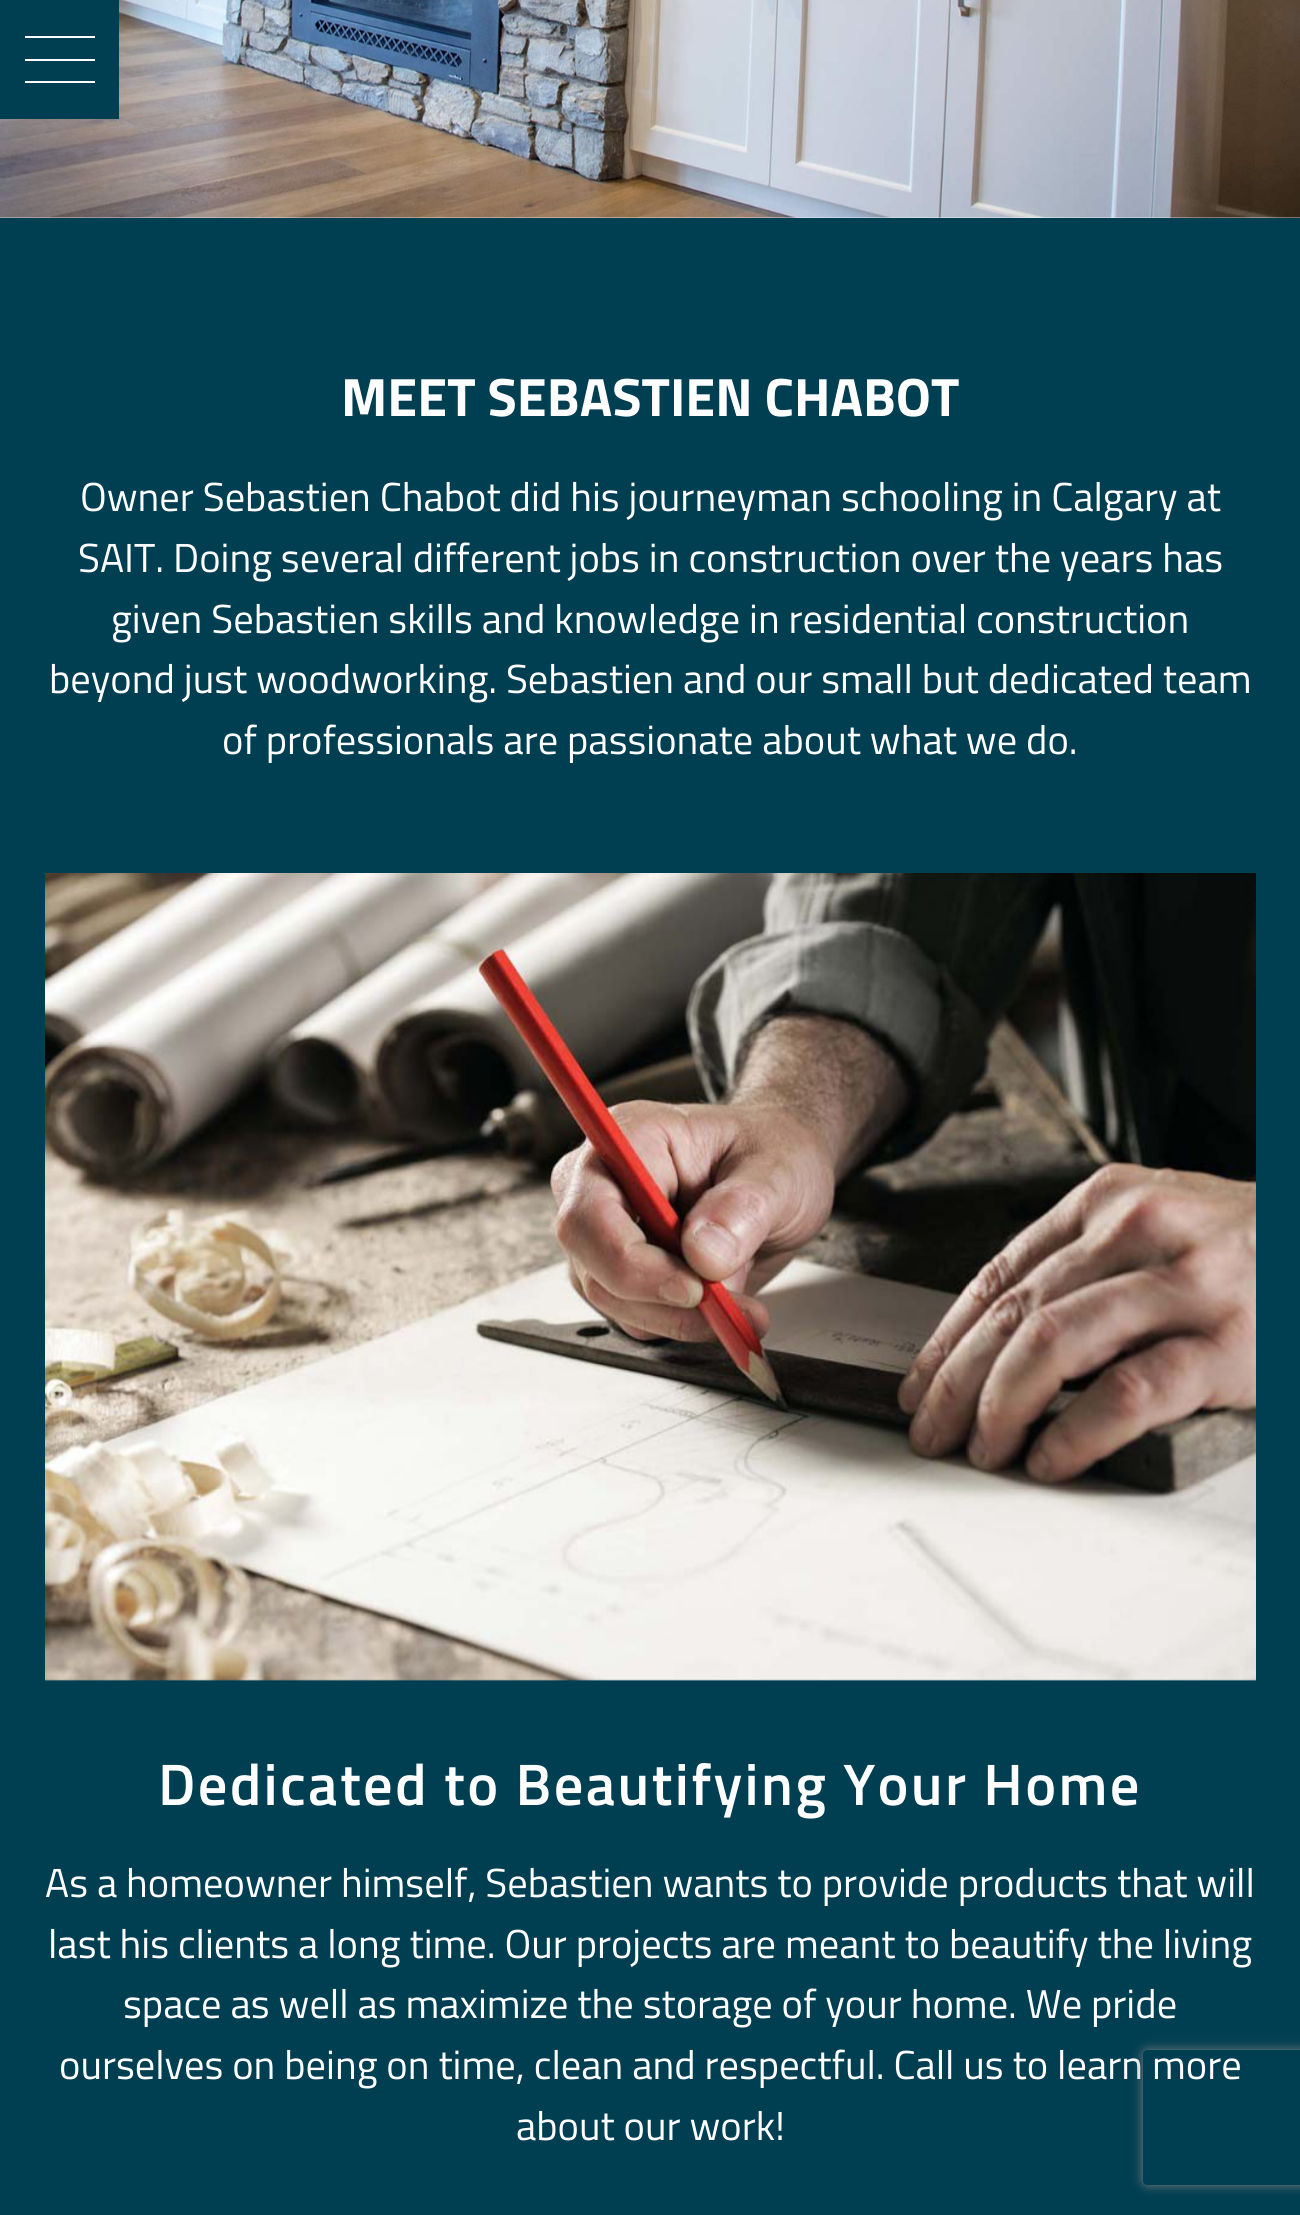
import math
import cairo

surface = cairo.ImageSurface(cairo.FORMAT_RGB24, 1300, 2215)
ctx = cairo.Context(surface)
options = cairo.FontOptions()
options.set_hint_metrics(cairo.HINT_METRICS_OFF)
options.set_hint_style(cairo.HINT_STYLE_NONE)
ctx.set_font_options(options)
ctx.set_miter_limit(4)


def spaced_text(x, y, s, letter, word):
    ctx.move_to(x, y)
    for ch in s:
        ctx.show_text(ch)
        ctx.rel_move_to(letter + word * (ch == ' '), 0)


def round_rect(x, y, w, h, r):
    ctx.new_sub_path()
    for i, (u, v) in enumerate([(x + w - r, y + h - r), (x + r, y + h - r), (x + r, y + r), (x + w - r, y + r)]):
        ctx.arc(u, v, r, i * math.pi / 2, (i + 1) * math.pi / 2)
    ctx.close_path()


def shadow(x, y, w, h, r, blur, alpha):
    ctx.push_group_with_content(cairo.CONTENT_ALPHA)
    ctx.set_operator(cairo.OPERATOR_SOURCE)
    for i in range(15, -16, -2):
        e = blur * i / 6
        if min(w, h) + 2 * e > 0:
            ctx.set_source_rgba(0, 0, 0, alpha * math.erfc((i - 1) / 8.5) / 2)
            round_rect(x - e, y - e, w + 2 * e, h + 2 * e, max(0, min(r + e + blur * .6, min(w, h) / 2 + e)))
            ctx.fill()
    ctx.mask(ctx.pop_group())


def picture(path, x, y, w, h):
    ctx.save()
    ctx.set_source_surface(cairo.ImageSurface.create_from_png(path), x, y)
    ctx.rectangle(x, y, w, h)
    ctx.fill()
    ctx.restore()


ctx.set_source_rgb(1, 1, 1)
ctx.paint()
picture("img1.png", 0, 0, 1300, 218)
ctx.set_source_rgb(0, 0.243, 0.322)
ctx.rectangle(0, 0, 119, 119)
ctx.fill()
ctx.set_source_rgb(1, 1, 1)
ctx.rectangle(25, 59, 70, 2)
ctx.fill()
ctx.rectangle(25, 36, 70, 2)
ctx.fill()
ctx.rectangle(25, 81, 70, 2)
ctx.fill()
ctx.set_source_rgb(0, 0.243, 0.322)
ctx.rectangle(0, 218, 1300, 1997)
ctx.fill()
ctx.select_font_face("Titillium Web", cairo.FONT_SLANT_NORMAL, cairo.FONT_WEIGHT_BOLD)
ctx.set_font_size(54)
ctx.set_source_rgb(1, 1, 1)
ctx.move_to(341, 416)
ctx.show_text("MEET SEBASTIEN CHABOT")
ctx.select_font_face("Titillium Web")
ctx.set_font_size(40.5)
ctx.move_to(80, 511)
ctx.show_text("Owner Sebastien Chabot did his journeyman schooling in Calgary at")
ctx.move_to(78, 572)
ctx.show_text("SAIT. Doing several different jobs in construction over the years has")
ctx.move_to(111, 633)
ctx.show_text("given Sebastien skills and knowledge in residential construction")
ctx.move_to(49, 693)
ctx.show_text("beyond just woodworking. Sebastien and our small but dedicated team")
ctx.move_to(222, 754)
ctx.show_text("of professionals are passionate about what we do.")
picture("img2.png", 45, 873, 1211, 808)
ctx.select_font_face("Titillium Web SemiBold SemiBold")
ctx.set_font_size(58.5)
spaced_text(158, 1805, "Dedicated to Beautifying Your Home", 2.25, 0)
ctx.select_font_face("Titillium Web")
ctx.set_font_size(40.5)
ctx.move_to(45, 1897)
ctx.show_text("As a homeowner himself, Sebastien wants to provide products that will")
ctx.move_to(48, 1958)
ctx.show_text("last his clients a long time. Our projects are meant to beautify the living")
ctx.move_to(123, 2018)
ctx.show_text("space as well as maximize the storage of your home. We pride")
ctx.move_to(59, 2079)
ctx.show_text("ourselves on being on time, clean and respectful. Call us to learn more")
ctx.move_to(516, 2140)
ctx.show_text("about our work!")
ctx.save()
ctx.set_fill_rule(cairo.FILL_RULE_EVEN_ODD)
ctx.new_path()
ctx.move_to(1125, 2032)
ctx.line_to(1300, 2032)
ctx.line_to(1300, 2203)
ctx.line_to(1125, 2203)
ctx.close_path()
ctx.move_to(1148, 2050)
ctx.line_to(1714, 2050)
ctx.curve_to(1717, 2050, 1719, 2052, 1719, 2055)
ctx.line_to(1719, 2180)
ctx.curve_to(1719, 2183, 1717, 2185, 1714, 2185)
ctx.line_to(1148, 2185)
ctx.curve_to(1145, 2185, 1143, 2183, 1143, 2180)
ctx.line_to(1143, 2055)
ctx.curve_to(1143, 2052, 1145, 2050, 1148, 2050)
ctx.close_path()
ctx.clip()
ctx.set_source_rgb(0.502, 0.502, 0.502)
shadow(1143, 2050, 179, 135, 5, 5.5, 1)
ctx.restore()
surface.write_to_png("page.png")
